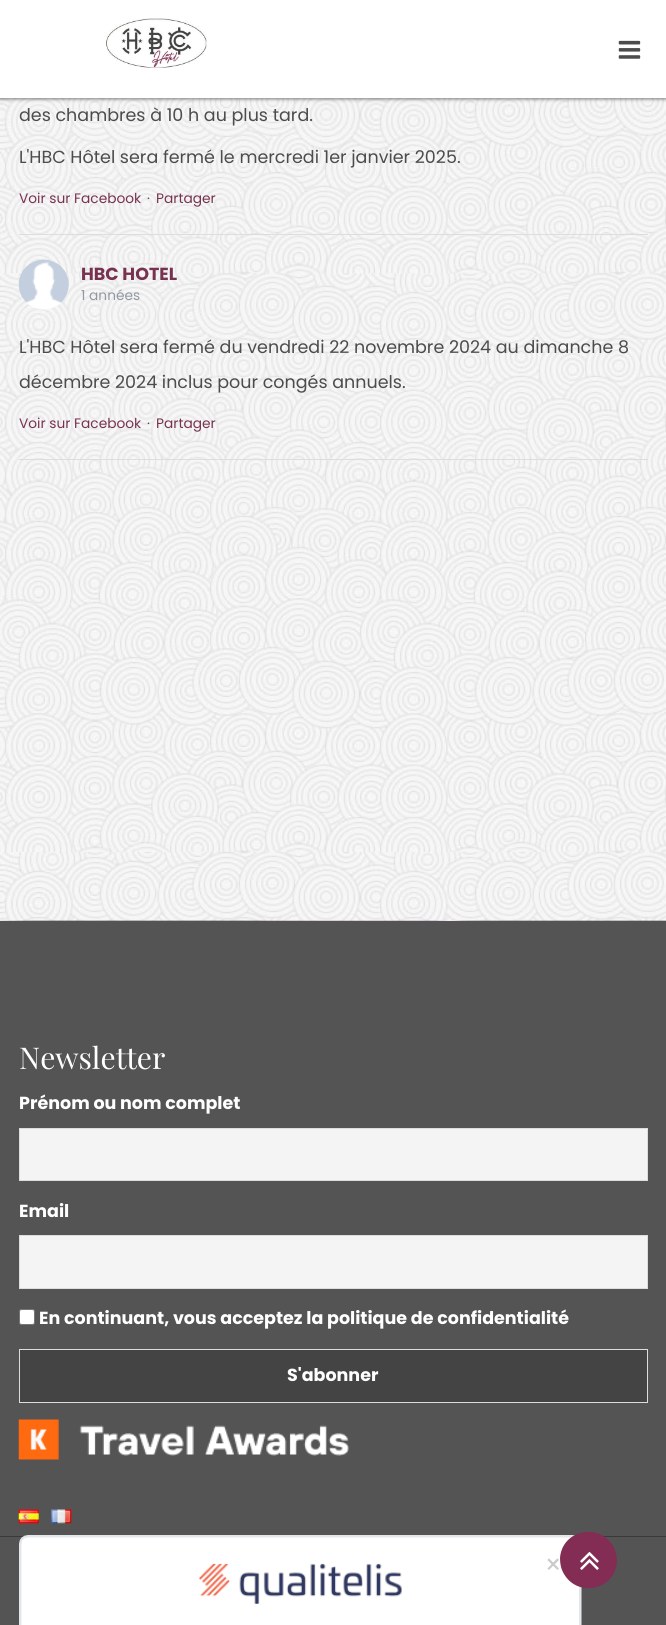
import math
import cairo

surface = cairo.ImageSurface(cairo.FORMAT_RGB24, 666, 1625)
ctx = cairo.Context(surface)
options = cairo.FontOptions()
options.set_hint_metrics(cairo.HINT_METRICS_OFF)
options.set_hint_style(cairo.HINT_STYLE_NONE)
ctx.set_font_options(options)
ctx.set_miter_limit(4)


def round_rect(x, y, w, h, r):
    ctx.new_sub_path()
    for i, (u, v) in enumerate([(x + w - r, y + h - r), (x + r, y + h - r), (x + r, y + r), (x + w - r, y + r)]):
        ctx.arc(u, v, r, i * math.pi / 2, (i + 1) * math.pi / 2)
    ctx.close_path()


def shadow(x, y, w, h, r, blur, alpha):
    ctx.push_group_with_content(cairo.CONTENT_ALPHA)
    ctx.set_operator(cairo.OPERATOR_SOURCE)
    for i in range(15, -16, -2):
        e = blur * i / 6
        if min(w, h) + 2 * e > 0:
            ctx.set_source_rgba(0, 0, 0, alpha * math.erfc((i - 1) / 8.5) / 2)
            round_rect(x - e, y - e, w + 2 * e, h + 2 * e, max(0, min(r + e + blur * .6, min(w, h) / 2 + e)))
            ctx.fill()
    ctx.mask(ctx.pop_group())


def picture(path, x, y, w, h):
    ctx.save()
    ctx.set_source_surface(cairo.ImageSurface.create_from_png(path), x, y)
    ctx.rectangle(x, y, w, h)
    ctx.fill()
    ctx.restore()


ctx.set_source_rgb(1, 1, 1)
ctx.paint()
picture("img1.png", 0, 920, 666, 1)
picture("img4.png", 0, 98, 666, 823)
ctx.set_source_rgb(0, 0, 0)
shadow(0, 1, 666, 98, 0, 2, 0.12)
shadow(0, 1, 666, 98, 0, 2, 0.12)
shadow(0, 1, 666, 98, 0, 2, 0.12)
shadow(0, 1, 666, 98, 0, 2, 0.12)
shadow(0, 1, 666, 98, 0, 2, 0.12)
ctx.set_source_rgb(1, 1, 1)
ctx.rectangle(0, 0, 666, 98)
ctx.fill()
picture("img2.png", 106, 18, 101, 50)
picture("img3.png", 618, 40, 23, 19)
ctx.set_source_rgb(0.867, 0.867, 0.867)
ctx.rectangle(19, 234, 629, 1)
ctx.fill()
ctx.select_font_face("Poppins")
ctx.set_font_size(17.5)
ctx.set_source_rgb(0.298, 0.298, 0.298)
ctx.move_to(19, 121)
ctx.show_text("des chambres à 10 h au plus tard.")
ctx.move_to(19, 163)
ctx.show_text("L'HBC Hôtel sera fermé le mercredi 1er janvier 2025.")
ctx.set_font_size(13.75)
ctx.set_source_rgb(0.471, 0.196, 0.314)
ctx.move_to(19, 203)
ctx.show_text("Voir sur Facebook")
ctx.set_source_rgb(0.298, 0.298, 0.298)
ctx.move_to(147, 203)
ctx.show_text("·")
ctx.set_source_rgb(0.471, 0.196, 0.314)
ctx.move_to(156, 203)
ctx.show_text("Partager")
ctx.set_source_rgb(0.867, 0.867, 0.867)
ctx.rectangle(19, 459, 629, 1)
ctx.fill()
picture("img5.png", 19, 259, 50, 51)
ctx.select_font_face("Poppins", cairo.FONT_SLANT_NORMAL, cairo.FONT_WEIGHT_BOLD)
ctx.set_font_size(17.5)
ctx.set_source_rgb(0.471, 0.196, 0.314)
ctx.move_to(81, 280)
ctx.show_text("HBC HOTEL")
ctx.select_font_face("Poppins")
ctx.set_font_size(13.75)
ctx.set_source_rgb(0.569, 0.592, 0.639)
ctx.move_to(81, 300)
ctx.show_text("1 années")
ctx.set_font_size(17.5)
ctx.set_source_rgb(0.298, 0.298, 0.298)
ctx.move_to(19, 353)
ctx.show_text("L'HBC Hôtel sera fermé du vendredi 22 novembre 2024 au dimanche 8")
ctx.move_to(19, 388)
ctx.show_text("décembre 2024 inclus pour congés annuels.")
ctx.set_font_size(13.75)
ctx.set_source_rgb(0.471, 0.196, 0.314)
ctx.move_to(19, 428)
ctx.show_text("Voir sur Facebook")
ctx.set_source_rgb(0.298, 0.298, 0.298)
ctx.move_to(147, 428)
ctx.show_text("·")
ctx.set_source_rgb(0.471, 0.196, 0.314)
ctx.move_to(156, 428)
ctx.show_text("Partager")
ctx.set_source_rgb(0.329, 0.329, 0.329)
ctx.rectangle(0, 921, 666, 704)
ctx.fill()
ctx.set_source_rgb(0.231, 0.227, 0.227)
ctx.rectangle(0, 1536, 666, 1)
ctx.fill()
ctx.select_font_face("Playfair Display")
ctx.set_font_size(30)
ctx.set_source_rgb(1, 1, 1)
ctx.move_to(19, 1069)
ctx.show_text("Newsletter")
ctx.select_font_face("Poppins", cairo.FONT_SLANT_NORMAL, cairo.FONT_WEIGHT_BOLD)
ctx.set_font_size(17.5)
ctx.move_to(19, 1109)
ctx.show_text("Prénom ou nom complet")
ctx.set_source_rgb(0.957, 0.957, 0.957)
ctx.rectangle(19.5, 1128.5, 628, 52)
ctx.fill_preserve()
ctx.set_source_rgb(0.867, 0.867, 0.867)
ctx.set_line_width(1)
ctx.stroke()
ctx.set_source_rgb(1, 1, 1)
ctx.move_to(19, 1217)
ctx.show_text("Email")
ctx.set_source_rgb(0.957, 0.957, 0.957)
ctx.rectangle(19.5, 1235.5, 628, 53)
ctx.fill_preserve()
ctx.set_source_rgb(0.867, 0.867, 0.867)
ctx.stroke()
ctx.set_source_rgb(1, 1, 1)
round_rect(19.5, 1309.5, 15, 15, 2)
ctx.fill_preserve()
ctx.set_source_rgb(0.463, 0.463, 0.463)
ctx.stroke()
ctx.set_source_rgb(1, 1, 1)
ctx.move_to(39, 1324)
ctx.show_text("En continuant, vous acceptez la politique de confidentialité")
ctx.set_source_rgb(0.267, 0.267, 0.267)
ctx.rectangle(19.5, 1349.5, 628, 53)
ctx.fill_preserve()
ctx.set_source_rgb(0.867, 0.867, 0.867)
ctx.stroke()
ctx.set_source_rgb(1, 1, 1)
ctx.move_to(287, 1381)
ctx.show_text("S'abonner")
picture("img6.png", 18, 1419, 331, 41)
picture("img7.png", 18, 1509, 21, 15)
picture("img8.png", 51, 1509, 21, 15)
picture("img9.png", 19, 1535, 563, 90)
ctx.set_source_rgb(0.514, 0.176, 0.329)
ctx.new_path()
ctx.move_to(613, 1546)
ctx.curve_to(616, 1551, 617, 1556, 617, 1562)
ctx.curve_to(615, 1590, 578, 1598, 564, 1574)
ctx.curve_to(561, 1569, 560, 1564, 560, 1558)
ctx.curve_to(562, 1530, 599, 1522, 613, 1546)
ctx.close_path()
ctx.fill()
picture("img10.png", 580, 1552, 19, 18)
surface.write_to_png("page.png")
